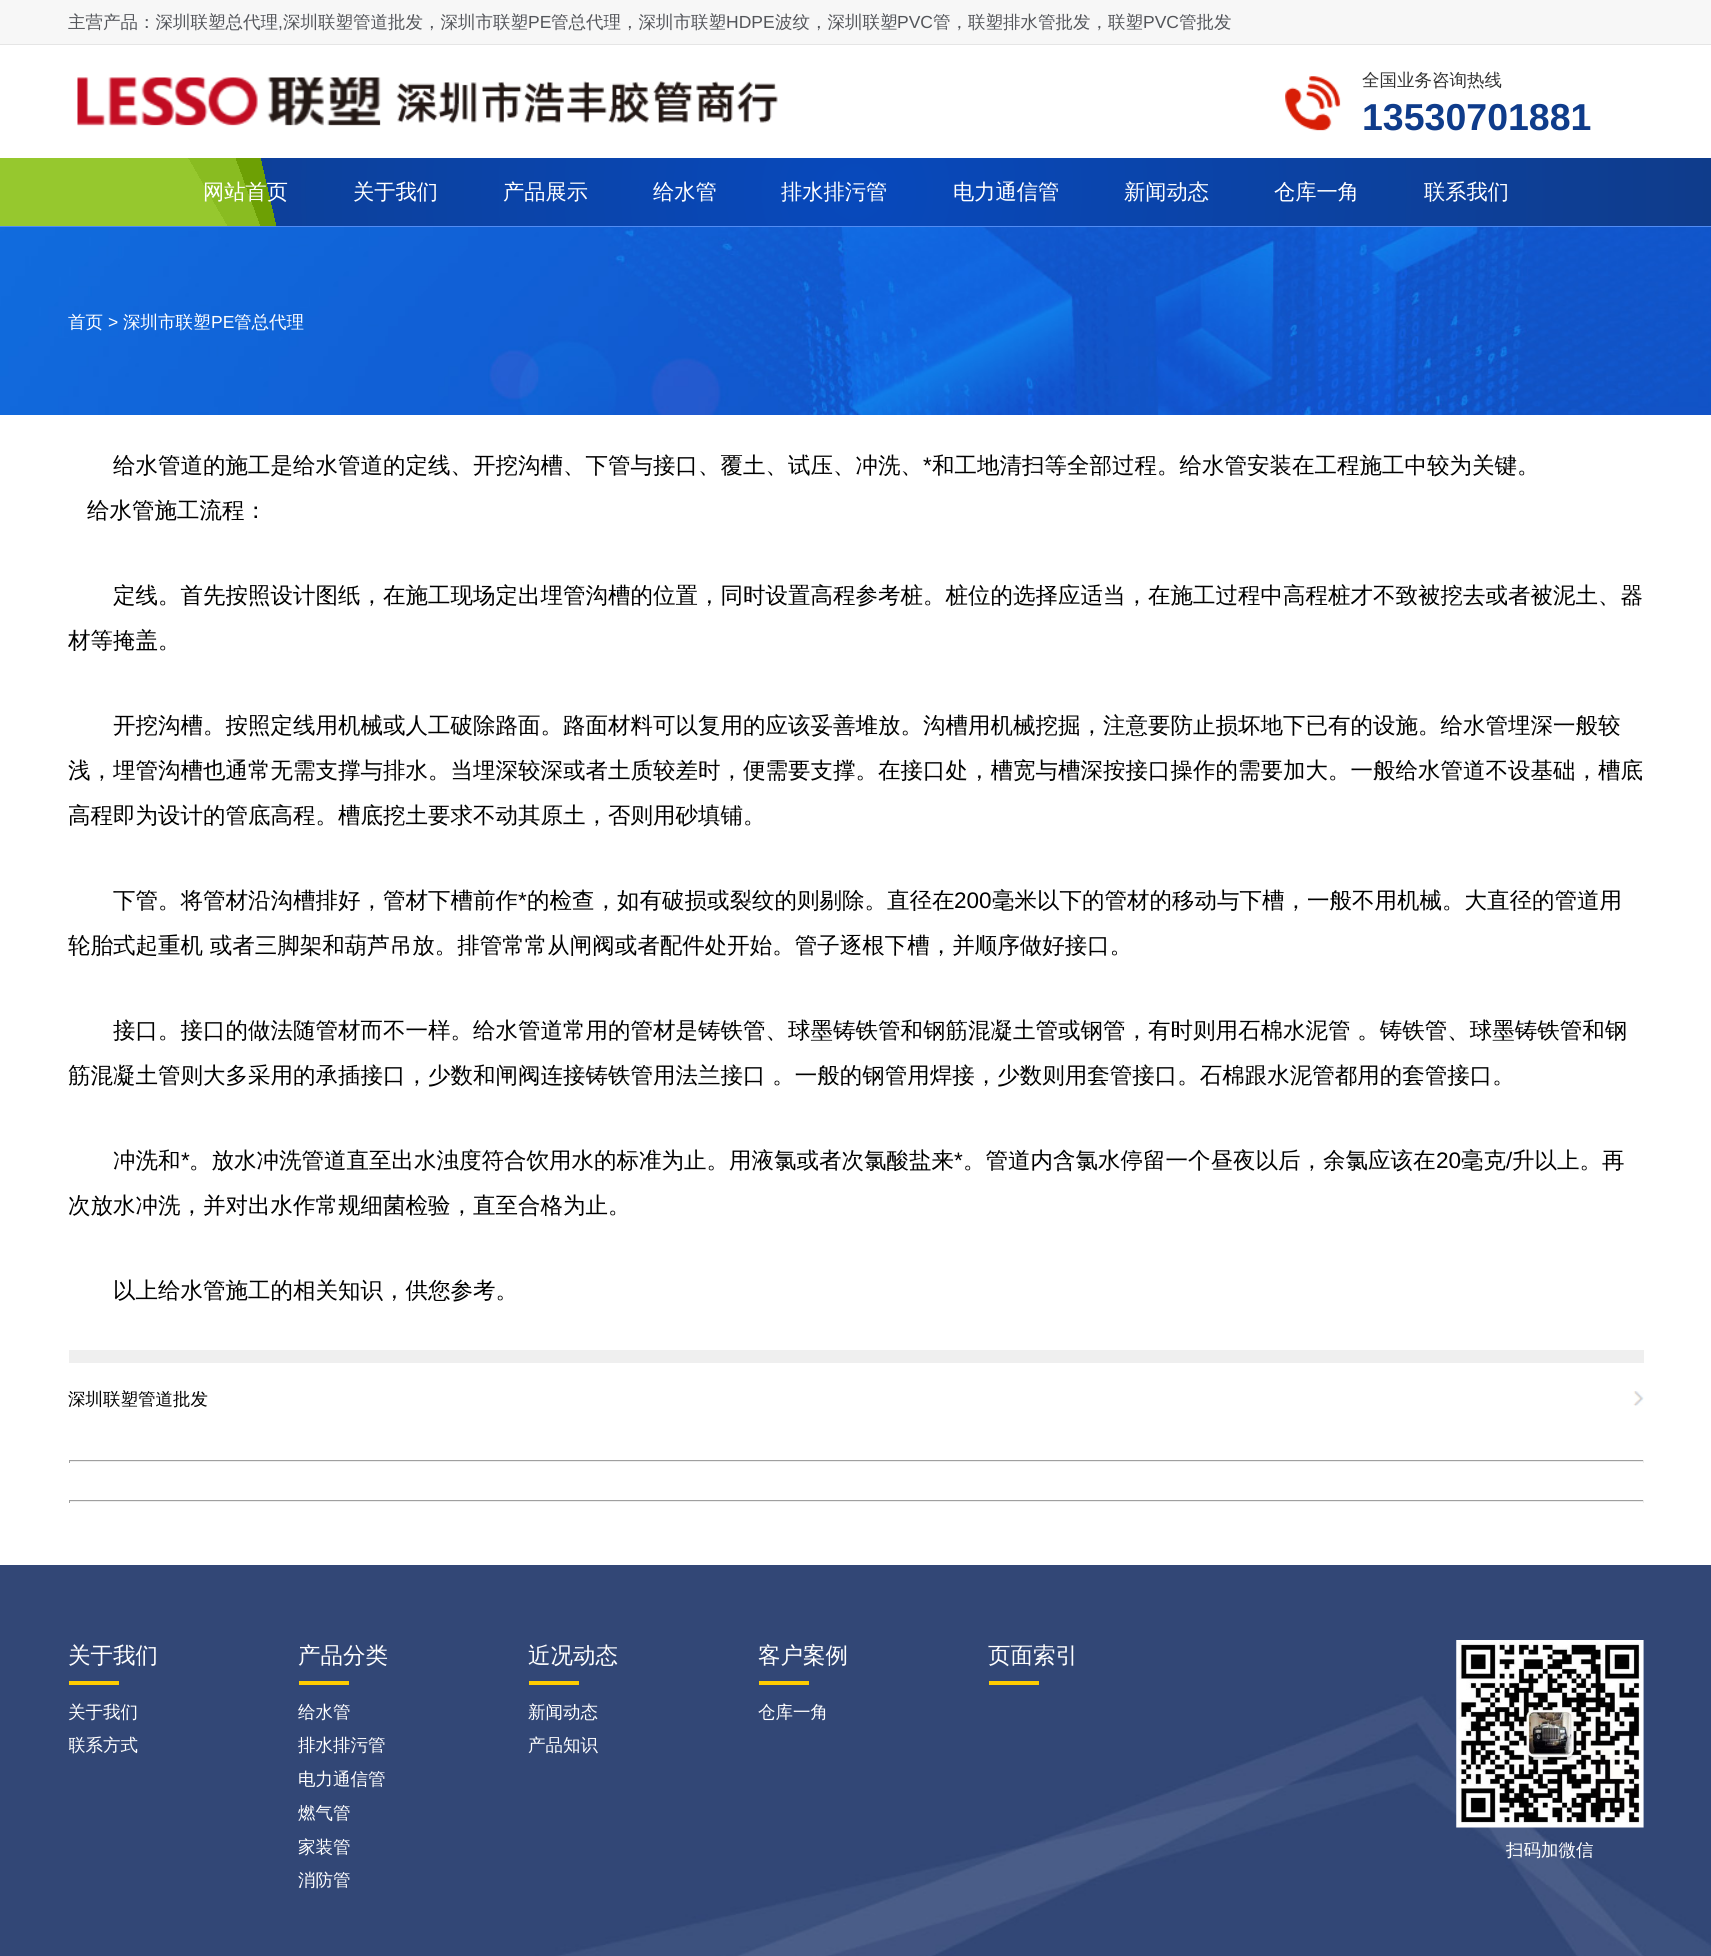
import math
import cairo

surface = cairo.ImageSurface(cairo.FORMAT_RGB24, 1711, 1956)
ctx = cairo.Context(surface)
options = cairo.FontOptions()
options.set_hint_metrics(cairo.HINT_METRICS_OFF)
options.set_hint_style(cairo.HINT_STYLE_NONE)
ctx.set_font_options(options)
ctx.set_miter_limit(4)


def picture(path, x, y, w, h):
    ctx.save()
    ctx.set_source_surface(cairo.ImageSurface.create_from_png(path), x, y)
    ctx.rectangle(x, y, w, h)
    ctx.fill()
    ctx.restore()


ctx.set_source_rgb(1, 1, 1)
ctx.paint()
ctx.set_source_rgb(0.965, 0.965, 0.965)
ctx.rectangle(0, 0, 1711, 44)
ctx.fill()
ctx.set_source_rgb(0.898, 0.898, 0.898)
ctx.rectangle(0, 44, 1711, 1)
ctx.fill()
ctx.select_font_face("WenQuanYi Zen Hei Medium")
ctx.set_font_size(17.5)
ctx.set_source_rgb(0.325, 0.333, 0.353)
ctx.move_to(68, 28)
ctx.show_text("主营产品：深圳联塑总代理")
ctx.select_font_face("Liberation Sans")
ctx.move_to(278, 28)
ctx.show_text(",")
ctx.select_font_face("WenQuanYi Zen Hei Medium")
ctx.move_to(283, 28)
ctx.show_text("深圳联塑管道批发，深圳市联塑")
ctx.select_font_face("Liberation Sans")
ctx.move_to(528, 28)
ctx.show_text("PE")
ctx.select_font_face("WenQuanYi Zen Hei Medium")
ctx.move_to(551, 28)
ctx.show_text("管总代理，深圳市联塑")
ctx.select_font_face("Liberation Sans")
ctx.move_to(726, 28)
ctx.show_text("HDPE")
ctx.select_font_face("WenQuanYi Zen Hei Medium")
ctx.move_to(775, 28)
ctx.show_text("波纹，深圳联塑")
ctx.select_font_face("Liberation Sans")
ctx.move_to(897, 28)
ctx.show_text("PVC")
ctx.select_font_face("WenQuanYi Zen Hei Medium")
ctx.move_to(933, 28)
ctx.show_text("管，联塑排水管批发，联塑")
ctx.select_font_face("Liberation Sans")
ctx.move_to(1143, 28)
ctx.show_text("PVC")
ctx.select_font_face("WenQuanYi Zen Hei Medium")
ctx.move_to(1179, 28)
ctx.show_text("管批发")
picture("img1.png", 77, 77, 701, 49)
picture("img2.png", 1285, 76, 56, 55)
ctx.set_source_rgb(0.2, 0.2, 0.2)
ctx.move_to(1362, 86)
ctx.show_text("全国业务咨询热线")
ctx.select_font_face("Liberation Sans", cairo.FONT_SLANT_NORMAL, cairo.FONT_WEIGHT_BOLD)
ctx.set_font_size(37.5)
ctx.set_source_rgb(0.059, 0.235, 0.545)
ctx.move_to(1362, 130)
ctx.show_text("13530701881")
gradient = cairo.RadialGradient(856, 192, 0, 856, 192, 856)
gradient.add_color_stop_rgba(0, 0.031, 0.286, 0.737, 1)
gradient.add_color_stop_rgba(1, 0.059, 0.235, 0.545, 1)
ctx.set_source(gradient)
ctx.rectangle(261, 158, 1450, 68)
ctx.fill()
gradient = cairo.LinearGradient(1675, 2.6, 36, 381)
gradient.add_color_stop_rgba(0.84, 0.427, 0.627, 0.016, 0)
gradient.add_color_stop_rgba(0.84, 0.427, 0.627, 0.016, 1)
ctx.set_source(gradient)
ctx.rectangle(188, 158, 88, 68)
ctx.fill()
gradient = cairo.LinearGradient(1622, -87, 89, 471)
gradient.add_color_stop_rgba(0.85, 0.588, 0.784, 0.18, 0)
gradient.add_color_stop_rgba(0.85, 0.588, 0.784, 0.18, 0.7)
ctx.set_source(gradient)
ctx.rectangle(188, 158, 72, 68)
ctx.fill()
gradient = cairo.LinearGradient(1512, -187, 199, 571)
gradient.add_color_stop_rgba(0.87, 0.588, 0.784, 0.18, 0)
gradient.add_color_stop_rgba(0.87, 0.588, 0.784, 0.18, 1)
ctx.set_source(gradient)
ctx.rectangle(0, 158, 227, 68)
ctx.fill()
ctx.select_font_face("WenQuanYi Zen Hei Medium")
ctx.set_font_size(21.25)
ctx.set_source_rgb(1, 1, 1)
ctx.move_to(203, 199)
ctx.show_text("网站首页")
ctx.move_to(353, 199)
ctx.show_text("关于我们")
ctx.move_to(503, 199)
ctx.show_text("产品展示")
ctx.move_to(653, 199)
ctx.show_text("给水管")
ctx.move_to(781, 199)
ctx.show_text("排水排污管")
ctx.move_to(953, 199)
ctx.show_text("电力通信管")
ctx.move_to(1124, 199)
ctx.show_text("新闻动态")
ctx.move_to(1274, 199)
ctx.show_text("仓库一角")
ctx.move_to(1424, 199)
ctx.show_text("联系我们")
picture("img3.png", 0, 227, 1711, 188)
ctx.set_source_rgb(0.318, 0.549, 0.957)
ctx.rectangle(0, 226, 1711, 1)
ctx.fill()
ctx.set_font_size(17.5)
ctx.set_source_rgb(1, 1, 1)
ctx.move_to(68, 328)
ctx.show_text("首页")
ctx.select_font_face("Liberation Sans")
ctx.move_to(108, 328)
ctx.show_text(">")
ctx.select_font_face("WenQuanYi Zen Hei Medium")
ctx.move_to(123, 328)
ctx.show_text("深圳市联塑")
ctx.select_font_face("Liberation Sans")
ctx.move_to(211, 328)
ctx.show_text("PE")
ctx.select_font_face("WenQuanYi Zen Hei Medium")
ctx.move_to(234, 328)
ctx.show_text("管总代理")
ctx.set_font_size(22.5)
ctx.set_source_rgb(0, 0, 0)
ctx.move_to(113, 473)
ctx.show_text("给水管道的施工是给水管道的定线、开挖沟槽、下管与接口、覆土、试压、冲洗、")
ctx.select_font_face("Liberation Sans")
ctx.move_to(923, 473)
ctx.show_text("*")
ctx.select_font_face("WenQuanYi Zen Hei Medium")
ctx.move_to(932, 473)
ctx.show_text("和工地清扫等全部过程。给水管安装在工程施工中较为关键。")
ctx.move_to(87, 518)
ctx.show_text("给水管施工流程：")
ctx.move_to(113, 603)
ctx.show_text("定线。首先按照设计图纸，在施工现场定出埋管沟槽的位置，同时设置高程参考桩。桩位的选择应适当，在施工过程中高程桩才不致被挖去或者被泥土、器")
ctx.move_to(68, 648)
ctx.show_text("材等掩盖。")
ctx.move_to(113, 733)
ctx.show_text("开挖沟槽。按照定线用机械或人工破除路面。路面材料可以复用的应该妥善堆放。沟槽用机械挖掘，注意要防止损坏地下已有的设施。给水管埋深一般较")
ctx.move_to(68, 778)
ctx.show_text("浅，埋管沟槽也通常无需支撑与排水。当埋深较深或者土质较差时，便需要支撑。在接口处，槽宽与槽深按接口操作的需要加大。一般给水管道不设基础，槽底")
ctx.move_to(68, 823)
ctx.show_text("高程即为设计的管底高程。槽底挖土要求不动其原土，否则用砂填铺。")
ctx.move_to(113, 908)
ctx.show_text("下管。将管材沿沟槽排好，管材下槽前作")
ctx.select_font_face("Liberation Sans")
ctx.move_to(518, 908)
ctx.show_text("*")
ctx.select_font_face("WenQuanYi Zen Hei Medium")
ctx.move_to(527, 908)
ctx.show_text("的检查，如有破损或裂纹的则剔除。直径在")
ctx.select_font_face("Liberation Sans")
ctx.move_to(954, 908)
ctx.show_text("200")
ctx.select_font_face("WenQuanYi Zen Hei Medium")
ctx.move_to(992, 908)
ctx.show_text("毫米以下的管材的移动与下槽，一般不用机械。大直径的管道用")
ctx.move_to(68, 953)
ctx.show_text("轮胎式起重机 或者三脚架和葫芦吊放。排管常常从闸阀或者配件处开始。管子逐根下槽，并顺序做好接口。")
ctx.move_to(113, 1038)
ctx.show_text("接口。接口的做法随管材而不一样。给水管道常用的管材是铸铁管、球墨铸铁管和钢筋混凝土管或钢管，有时则用石棉水泥管 。铸铁管、球墨铸铁管和钢")
ctx.move_to(68, 1083)
ctx.show_text("筋混凝土管则大多采用的承插接口，少数和闸阀连接铸铁管用法兰接口 。一般的钢管用焊接，少数则用套管接口。石棉跟水泥管都用的套管接口。")
ctx.move_to(113, 1168)
ctx.show_text("冲洗和")
ctx.select_font_face("Liberation Sans")
ctx.move_to(181, 1168)
ctx.show_text("*")
ctx.select_font_face("WenQuanYi Zen Hei Medium")
ctx.move_to(189, 1168)
ctx.show_text("。放水冲洗管道直至出水浊度符合饮用水的标准为止。用液氯或者次氯酸盐来")
ctx.select_font_face("Liberation Sans")
ctx.move_to(954, 1168)
ctx.show_text("*")
ctx.select_font_face("WenQuanYi Zen Hei Medium")
ctx.move_to(963, 1168)
ctx.show_text("。管道内含氯水停留一个昼夜以后，余氯应该在")
ctx.select_font_face("Liberation Sans")
ctx.move_to(1436, 1168)
ctx.show_text("20")
ctx.select_font_face("WenQuanYi Zen Hei Medium")
ctx.move_to(1461, 1168)
ctx.show_text("毫克")
ctx.select_font_face("Liberation Sans")
ctx.move_to(1506, 1168)
ctx.show_text("/")
ctx.select_font_face("WenQuanYi Zen Hei Medium")
ctx.move_to(1512, 1168)
ctx.show_text("升以上。再")
ctx.move_to(68, 1213)
ctx.show_text("次放水冲洗，并对出水作常规细菌检验，直至合格为止。")
ctx.move_to(113, 1298)
ctx.show_text("以上给水管施工的相关知识，供您参考。")
ctx.set_source_rgb(0.937, 0.937, 0.937)
ctx.rectangle(69, 1350, 1575, 13)
ctx.fill()
picture("img4.png", 1633, 1391, 11, 15)
ctx.set_font_size(17.5)
ctx.set_source_rgb(0, 0, 0)
ctx.move_to(68, 1405)
ctx.show_text("深圳联塑管道批发")
ctx.set_source_rgb(0.624, 0.624, 0.624)
ctx.rectangle(69, 1460, 1575, 1)
ctx.fill()
ctx.set_source_rgb(0.933, 0.933, 0.933)
ctx.rectangle(1643, 1460, 1, 3)
ctx.fill()
ctx.rectangle(69, 1461, 1575, 1)
ctx.fill()
ctx.set_source_rgb(0.624, 0.624, 0.624)
ctx.rectangle(69, 1460, 1, 3)
ctx.fill()
ctx.rectangle(69, 1500, 1575, 1)
ctx.fill()
ctx.set_source_rgb(0.933, 0.933, 0.933)
ctx.rectangle(1643, 1500, 1, 3)
ctx.fill()
ctx.rectangle(69, 1501, 1575, 1)
ctx.fill()
ctx.set_source_rgb(0.624, 0.624, 0.624)
ctx.rectangle(69, 1500, 1, 3)
ctx.fill()
picture("img5.png", 0, 1565, 1711, 391)
ctx.set_font_size(22.5)
ctx.set_source_rgb(1, 1, 1)
ctx.move_to(68, 1663)
ctx.show_text("关于我们")
ctx.set_source_rgb(1, 0.8, 0)
ctx.rectangle(69, 1681, 50, 4)
ctx.fill()
ctx.set_font_size(17.5)
ctx.set_source_rgb(1, 1, 1)
ctx.move_to(68, 1718)
ctx.show_text("关于我们")
ctx.save()
ctx.rectangle(69, 1640, 1575, 258)
ctx.clip()
ctx.move_to(68, 1751)
ctx.show_text("联系方式")
ctx.restore()
ctx.set_font_size(22.5)
ctx.move_to(298, 1663)
ctx.show_text("产品分类")
ctx.set_source_rgb(1, 0.8, 0)
ctx.rectangle(299, 1681, 50, 4)
ctx.fill()
ctx.set_font_size(17.5)
ctx.set_source_rgb(1, 1, 1)
ctx.move_to(298, 1718)
ctx.show_text("给水管")
ctx.move_to(298, 1751)
ctx.show_text("排水排污管")
ctx.move_to(298, 1785)
ctx.show_text("电力通信管")
ctx.move_to(298, 1819)
ctx.show_text("燃气管")
ctx.move_to(298, 1853)
ctx.show_text("家装管")
ctx.move_to(298, 1886)
ctx.show_text("消防管")
ctx.set_font_size(22.5)
ctx.move_to(528, 1663)
ctx.show_text("近况动态")
ctx.set_source_rgb(1, 0.8, 0)
ctx.rectangle(529, 1681, 50, 4)
ctx.fill()
ctx.set_font_size(17.5)
ctx.set_source_rgb(1, 1, 1)
ctx.move_to(528, 1718)
ctx.show_text("新闻动态")
ctx.move_to(528, 1751)
ctx.show_text("产品知识")
ctx.set_font_size(22.5)
ctx.move_to(758, 1663)
ctx.show_text("客户案例")
ctx.set_source_rgb(1, 0.8, 0)
ctx.rectangle(759, 1681, 50, 4)
ctx.fill()
ctx.set_font_size(17.5)
ctx.set_source_rgb(1, 1, 1)
ctx.move_to(758, 1718)
ctx.show_text("仓库一角")
ctx.set_font_size(22.5)
ctx.move_to(988, 1663)
ctx.show_text("页面索引")
ctx.set_source_rgb(1, 0.8, 0)
ctx.rectangle(989, 1681, 50, 4)
ctx.fill()
picture("img6.png", 1456, 1640, 188, 188)
ctx.set_font_size(17.5)
ctx.set_source_rgb(1, 1, 1)
ctx.move_to(1506, 1856)
ctx.show_text("扫码加微信")
surface.write_to_png("page.png")
